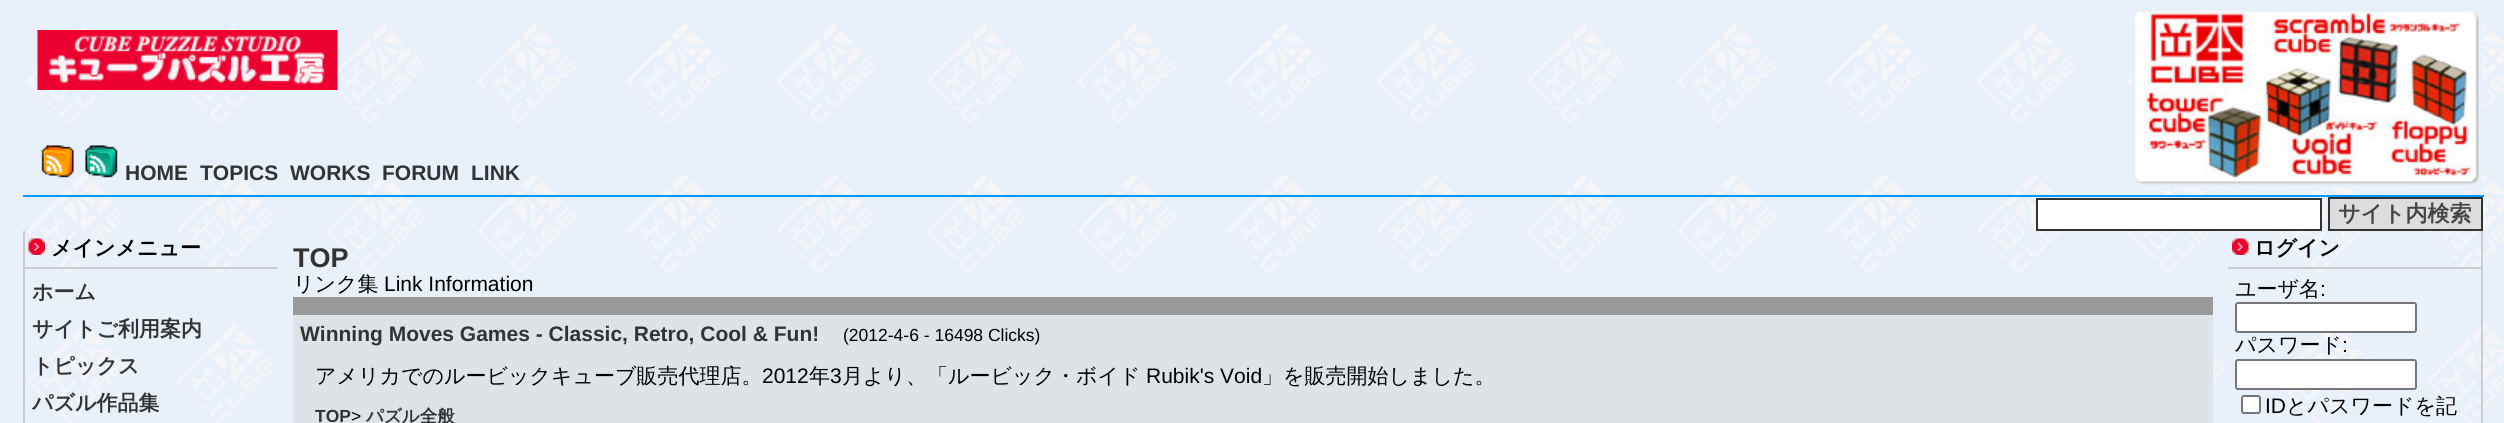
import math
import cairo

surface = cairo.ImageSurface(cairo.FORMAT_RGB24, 2504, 423)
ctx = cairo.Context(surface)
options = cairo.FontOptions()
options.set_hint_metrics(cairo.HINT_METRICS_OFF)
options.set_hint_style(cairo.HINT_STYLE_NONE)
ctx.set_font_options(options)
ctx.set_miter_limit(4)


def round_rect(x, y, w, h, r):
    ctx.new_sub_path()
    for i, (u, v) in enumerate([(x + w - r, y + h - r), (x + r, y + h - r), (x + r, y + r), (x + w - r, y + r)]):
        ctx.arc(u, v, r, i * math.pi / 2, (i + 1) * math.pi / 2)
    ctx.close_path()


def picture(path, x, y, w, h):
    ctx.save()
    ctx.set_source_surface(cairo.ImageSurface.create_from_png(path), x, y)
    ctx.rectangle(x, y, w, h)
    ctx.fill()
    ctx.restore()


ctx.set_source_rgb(1, 1, 1)
ctx.paint()
picture("img1.png", 0, 0, 2504, 423)
picture("img2.png", 37, 30, 301, 60)
picture("img3.png", 2131, 7, 352, 181)
ctx.set_source_rgb(0, 0.604, 1)
ctx.rectangle(23, 195, 2461, 2)
ctx.fill()
picture("img4.png", 41, 145, 33, 33)
picture("img5.png", 85, 145, 33, 33)
ctx.select_font_face("Liberation Sans", cairo.FONT_SLANT_NORMAL, cairo.FONT_WEIGHT_BOLD)
ctx.set_font_size(21)
ctx.set_source_rgb(0.2, 0.2, 0.2)
ctx.move_to(125, 180)
ctx.show_text("HOME")
ctx.move_to(200, 180)
ctx.show_text("TOPICS")
ctx.move_to(290, 180)
ctx.show_text("WORKS")
ctx.move_to(382, 180)
ctx.show_text("FORUM")
ctx.move_to(471, 180)
ctx.show_text("LINK")
ctx.set_source_rgb(1, 1, 1)
ctx.rectangle(2037, 199, 284, 31)
ctx.fill_preserve()
ctx.set_source_rgb(0.2, 0.2, 0.2)
ctx.stroke()
ctx.set_source_rgb(0.867, 0.867, 0.867)
ctx.rectangle(2329, 198, 153, 32)
ctx.fill_preserve()
ctx.set_source_rgb(0.2, 0.2, 0.2)
ctx.stroke()
ctx.select_font_face("WenQuanYi Zen Hei", cairo.FONT_SLANT_NORMAL, cairo.FONT_WEIGHT_BOLD)
ctx.set_font_size(22)
ctx.set_source_rgb(0.267, 0.267, 0.267)
ctx.move_to(2338, 221)
ctx.show_text("サイト内検索")
ctx.set_source_rgb(0.8, 0.8, 0.8)
ctx.rectangle(23, 267, 255, 2)
ctx.fill()
ctx.rectangle(23, 231, 2, 192)
ctx.fill()
picture("img6.png", 28, 238, 17, 17)
ctx.set_font_size(21)
ctx.set_source_rgb(0, 0, 0)
ctx.move_to(51, 255)
ctx.show_text("メインメニュー")
ctx.set_source_rgb(0.2, 0.2, 0.2)
ctx.move_to(32, 299)
ctx.show_text("ホーム")
ctx.move_to(32, 336)
ctx.show_text("サイトご利用案内")
ctx.move_to(32, 373)
ctx.show_text("トピックス")
ctx.move_to(32, 410)
ctx.show_text("パズル作品集")
ctx.select_font_face("Liberation Sans", cairo.FONT_SLANT_NORMAL, cairo.FONT_WEIGHT_BOLD)
ctx.set_font_size(27)
ctx.move_to(293, 267)
ctx.show_text("TOP")
ctx.select_font_face("WenQuanYi Zen Hei Medium")
ctx.set_font_size(21)
ctx.set_source_rgb(0, 0, 0)
ctx.move_to(293, 291)
ctx.show_text("リンク集")
ctx.select_font_face("Liberation Sans")
ctx.move_to(384, 291)
ctx.show_text("Link Information")
ctx.set_source_rgb(0.6, 0.6, 0.6)
ctx.rectangle(293, 297, 1920, 18)
ctx.fill()
ctx.set_source_rgb(0.871, 0.89, 0.906)
ctx.rectangle(293, 315, 1920, 41)
ctx.fill()
ctx.select_font_face("Liberation Sans", cairo.FONT_SLANT_NORMAL, cairo.FONT_WEIGHT_BOLD)
ctx.set_source_rgb(0.2, 0.2, 0.2)
ctx.move_to(300, 341)
ctx.show_text("Winning Moves Games - Classic, Retro, Cool & Fun!")
ctx.select_font_face("Liberation Sans")
ctx.set_font_size(17.5)
ctx.set_source_rgb(0, 0, 0)
ctx.move_to(843, 341)
ctx.show_text("(2012-4-6 - 16498 Clicks)")
ctx.set_source_rgb(0.871, 0.89, 0.906)
ctx.rectangle(293, 356, 1920, 67)
ctx.fill()
ctx.select_font_face("WenQuanYi Zen Hei Medium")
ctx.set_font_size(21)
ctx.set_source_rgb(0, 0, 0)
ctx.move_to(315, 383)
ctx.show_text("アメリカでのルービックキューブ販売代理店。")
ctx.select_font_face("Liberation Sans")
ctx.move_to(762, 383)
ctx.show_text("2012")
ctx.select_font_face("WenQuanYi Zen Hei Medium")
ctx.move_to(809, 383)
ctx.show_text("年")
ctx.select_font_face("Liberation Sans")
ctx.move_to(830, 383)
ctx.show_text("3")
ctx.select_font_face("WenQuanYi Zen Hei Medium")
ctx.move_to(842, 383)
ctx.show_text("月より、「ルービック・ボイド")
ctx.select_font_face("Liberation Sans")
ctx.move_to(1146, 383)
ctx.show_text("Rubik's Void")
ctx.select_font_face("WenQuanYi Zen Hei Medium")
ctx.move_to(1262, 383)
ctx.show_text("」を販売開始しました。")
ctx.select_font_face("Liberation Sans", cairo.FONT_SLANT_NORMAL, cairo.FONT_WEIGHT_BOLD)
ctx.set_font_size(17.5)
ctx.set_source_rgb(0.2, 0.2, 0.2)
ctx.move_to(315, 422)
ctx.show_text("TOP")
ctx.select_font_face("Liberation Sans")
ctx.set_source_rgb(0, 0, 0)
ctx.move_to(351, 422)
ctx.show_text(">")
ctx.select_font_face("WenQuanYi Zen Hei", cairo.FONT_SLANT_NORMAL, cairo.FONT_WEIGHT_BOLD)
ctx.set_source_rgb(0.2, 0.2, 0.2)
ctx.move_to(366, 422)
ctx.show_text("パズル全般")
ctx.set_source_rgb(0.8, 0.8, 0.8)
ctx.rectangle(2481, 231, 2, 192)
ctx.fill()
ctx.rectangle(2228, 267, 255, 2)
ctx.fill()
picture("img7.png", 2232, 238, 17, 17)
ctx.set_font_size(21)
ctx.set_source_rgb(0, 0, 0)
ctx.move_to(2254, 255)
ctx.show_text("ログイン")
ctx.select_font_face("WenQuanYi Zen Hei Medium")
ctx.move_to(2235, 296)
ctx.show_text("ユーザ名")
ctx.select_font_face("Liberation Sans")
ctx.move_to(2320, 296)
ctx.show_text(":")
ctx.set_source_rgb(1, 1, 1)
round_rect(2236, 303, 180, 29, 2)
ctx.fill_preserve()
ctx.set_source_rgb(0.463, 0.463, 0.463)
ctx.stroke()
ctx.select_font_face("WenQuanYi Zen Hei Medium")
ctx.set_source_rgb(0, 0, 0)
ctx.move_to(2235, 352)
ctx.show_text("パスワード")
ctx.select_font_face("Liberation Sans")
ctx.move_to(2342, 352)
ctx.show_text(":")
ctx.set_source_rgb(1, 1, 1)
round_rect(2236, 360, 180, 29, 2)
ctx.fill_preserve()
ctx.set_source_rgb(0.463, 0.463, 0.463)
ctx.stroke()
ctx.set_source_rgb(1, 1, 1)
round_rect(2242, 396, 18, 17, 2)
ctx.fill_preserve()
ctx.set_source_rgb(0.463, 0.463, 0.463)
ctx.stroke()
ctx.set_source_rgb(0, 0, 0)
ctx.move_to(2265, 413)
ctx.show_text("ID")
ctx.select_font_face("WenQuanYi Zen Hei Medium")
ctx.move_to(2286, 413)
ctx.show_text("とパスワードを記")
surface.write_to_png("page.png")
